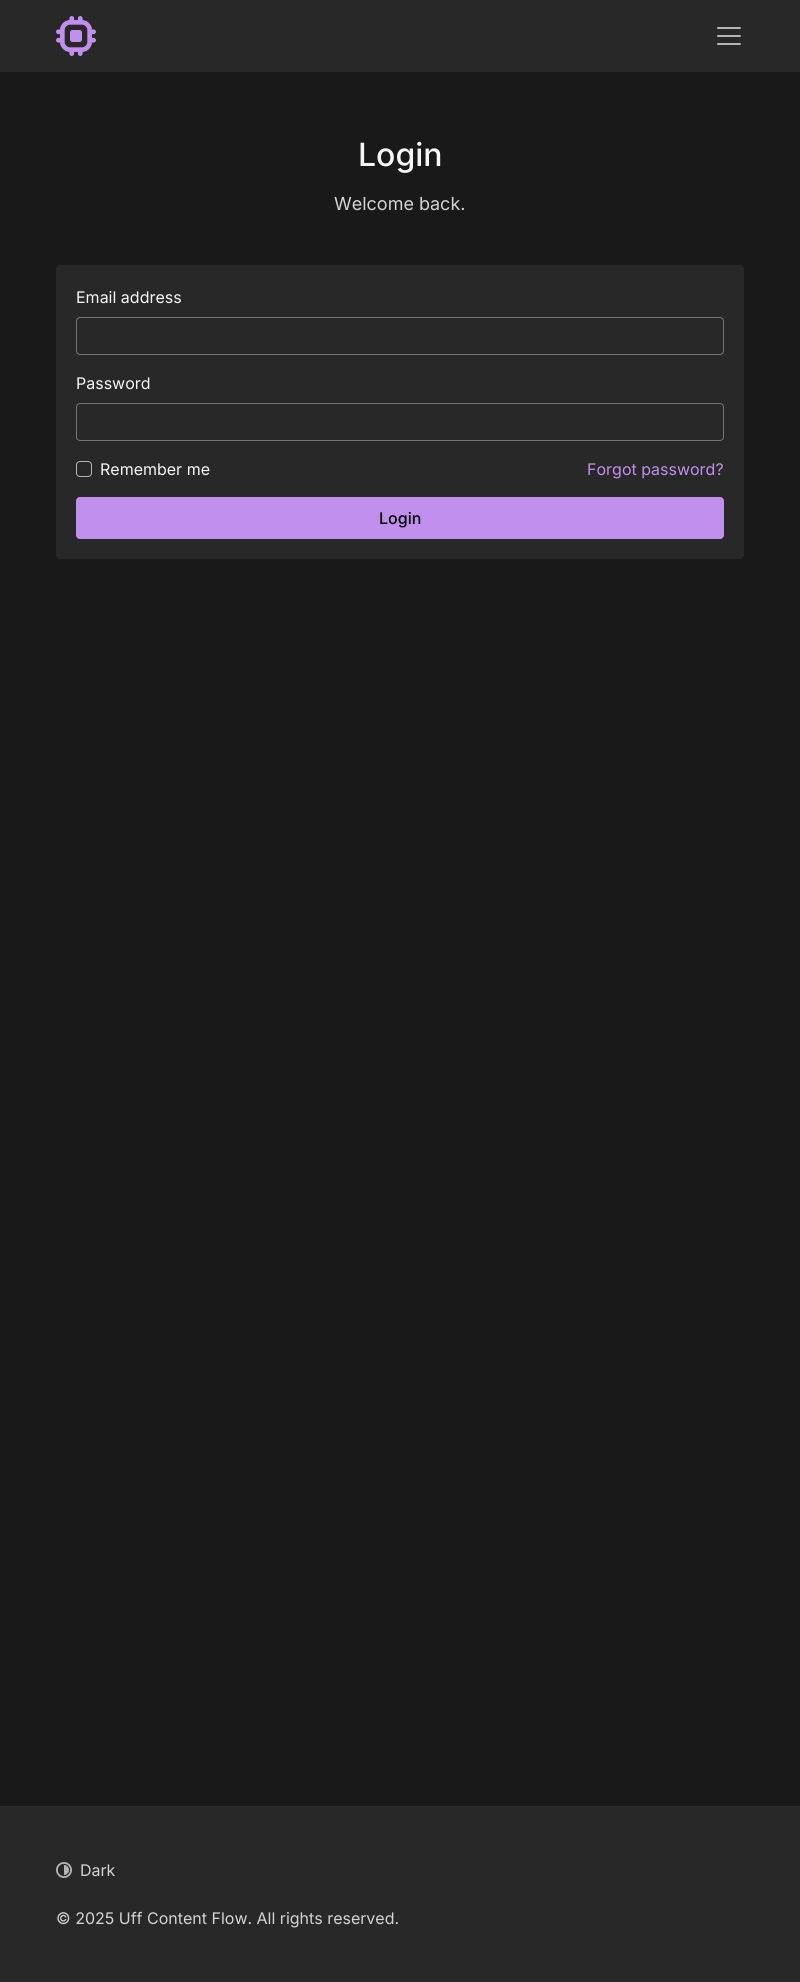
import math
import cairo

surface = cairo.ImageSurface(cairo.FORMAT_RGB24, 800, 1982)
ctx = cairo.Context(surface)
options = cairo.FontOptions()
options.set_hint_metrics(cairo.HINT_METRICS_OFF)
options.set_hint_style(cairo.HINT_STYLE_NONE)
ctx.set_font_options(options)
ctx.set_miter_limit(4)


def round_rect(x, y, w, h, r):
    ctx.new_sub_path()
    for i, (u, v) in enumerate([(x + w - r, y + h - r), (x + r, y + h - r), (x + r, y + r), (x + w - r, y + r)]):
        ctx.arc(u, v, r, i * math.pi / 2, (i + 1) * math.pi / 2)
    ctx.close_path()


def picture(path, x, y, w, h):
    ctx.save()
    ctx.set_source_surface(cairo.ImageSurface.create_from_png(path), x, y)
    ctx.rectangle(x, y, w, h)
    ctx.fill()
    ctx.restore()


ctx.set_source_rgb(0.157, 0.157, 0.157)
ctx.paint()
picture("img1.png", 56, 16, 40, 40)
picture("img2.png", 717, 27, 24, 18)
ctx.set_source_rgb(0.098, 0.098, 0.098)
ctx.rectangle(0, 72, 800, 1734)
ctx.fill()
ctx.select_font_face("Inter Medium")
ctx.set_font_size(32)
ctx.set_source_rgb(0.961, 0.961, 0.961)
ctx.move_to(358, 166)
ctx.show_text("Login")
ctx.select_font_face("Inter")
ctx.set_font_size(18)
ctx.set_source_rgb(0.831, 0.831, 0.831)
ctx.move_to(334, 210)
ctx.show_text("Welcome back.")
ctx.set_source_rgb(0.157, 0.157, 0.157)
round_rect(56, 265, 688, 294, 4)
ctx.fill()
ctx.set_font_size(16)
ctx.set_source_rgb(0.961, 0.961, 0.961)
ctx.move_to(76, 303)
ctx.show_text("Email address")
round_rect(76.5, 317.5, 647, 37, 3.5)
ctx.set_source_rgb(0.459, 0.459, 0.459)
ctx.set_line_width(1)
ctx.stroke()
ctx.set_source_rgb(0.961, 0.961, 0.961)
ctx.move_to(76, 389)
ctx.show_text("Password")
round_rect(76.5, 403.5, 647, 37, 3.5)
ctx.set_source_rgb(0.459, 0.459, 0.459)
ctx.stroke()
round_rect(76.5, 461.5, 15, 15, 3.5)
ctx.set_source_rgb(0.71, 0.71, 0.71)
ctx.stroke()
ctx.set_source_rgb(0.961, 0.961, 0.961)
ctx.move_to(100, 475)
ctx.show_text("Remember me")
ctx.set_source_rgb(0.757, 0.565, 0.933)
ctx.move_to(587, 475)
ctx.show_text("Forgot password?")
round_rect(76.5, 497.5, 647, 41, 3.5)
ctx.fill_preserve()
ctx.stroke()
ctx.select_font_face("Inter Medium")
ctx.set_source_rgb(0, 0, 0)
ctx.move_to(379, 524)
ctx.show_text("Login")
picture("img3.png", 56, 1862, 16, 16)
ctx.select_font_face("Inter")
ctx.set_source_rgb(0.831, 0.831, 0.831)
ctx.move_to(80, 1876)
ctx.show_text("Dark")
ctx.move_to(56, 1924)
ctx.show_text("© 2025 Uff Content Flow. All rights reserved.")
surface.write_to_png("page.png")
